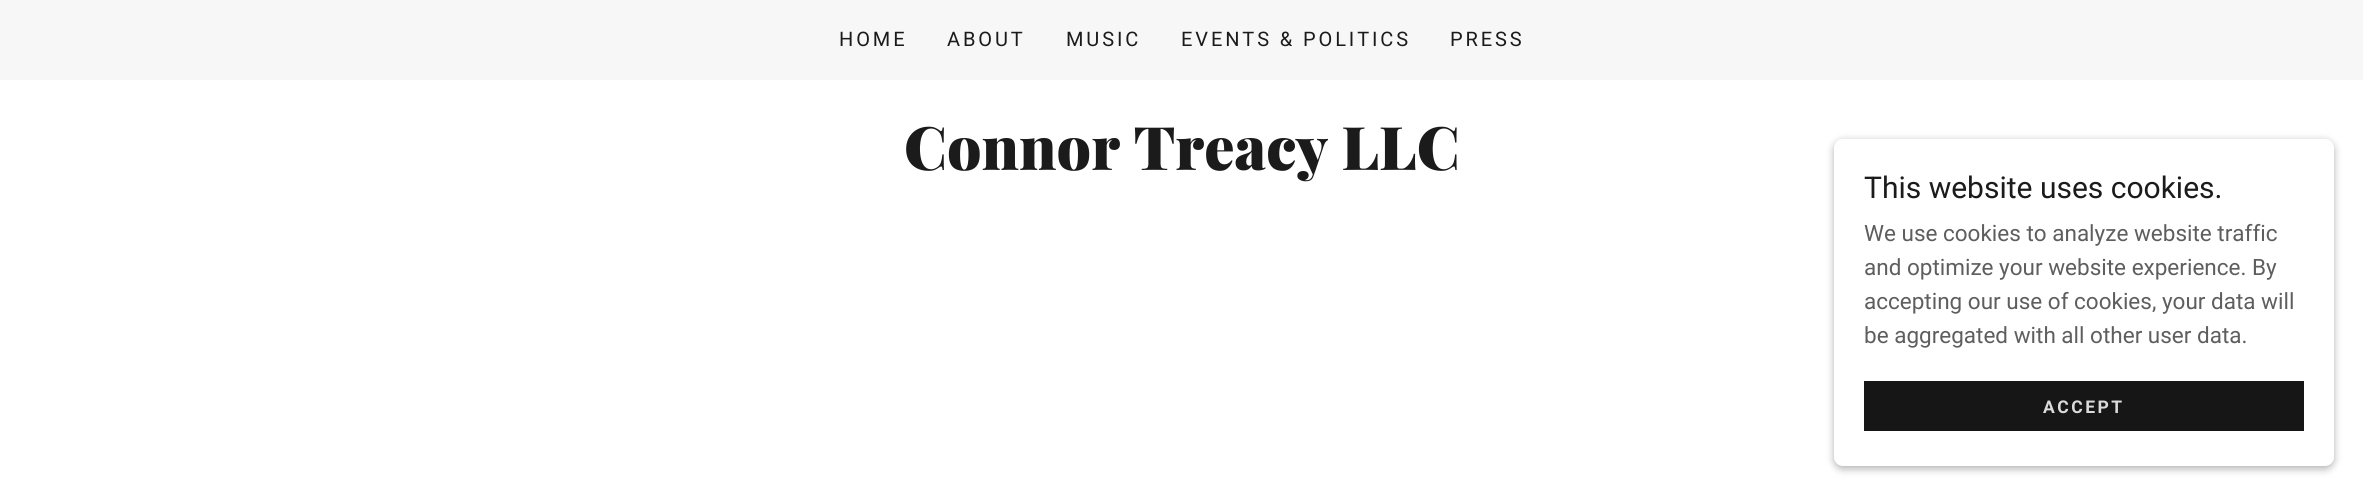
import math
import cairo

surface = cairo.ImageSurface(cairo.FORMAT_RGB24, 2363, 496)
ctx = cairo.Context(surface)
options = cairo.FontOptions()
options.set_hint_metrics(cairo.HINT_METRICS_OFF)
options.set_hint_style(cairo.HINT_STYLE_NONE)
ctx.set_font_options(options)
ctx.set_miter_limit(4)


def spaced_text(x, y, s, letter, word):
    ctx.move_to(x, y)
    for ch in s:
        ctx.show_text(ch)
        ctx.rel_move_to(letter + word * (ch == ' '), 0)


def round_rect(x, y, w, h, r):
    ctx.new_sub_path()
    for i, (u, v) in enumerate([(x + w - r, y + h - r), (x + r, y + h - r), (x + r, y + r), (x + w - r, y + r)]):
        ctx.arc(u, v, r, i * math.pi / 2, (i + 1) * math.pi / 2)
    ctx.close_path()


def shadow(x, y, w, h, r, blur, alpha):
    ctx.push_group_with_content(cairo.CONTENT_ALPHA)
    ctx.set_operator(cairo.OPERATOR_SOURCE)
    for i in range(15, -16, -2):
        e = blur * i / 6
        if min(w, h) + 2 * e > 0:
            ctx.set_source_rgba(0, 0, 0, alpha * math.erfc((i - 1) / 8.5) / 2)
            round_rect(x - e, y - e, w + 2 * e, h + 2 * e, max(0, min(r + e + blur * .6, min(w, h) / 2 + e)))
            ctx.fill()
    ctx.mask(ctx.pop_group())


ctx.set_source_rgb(1, 1, 1)
ctx.paint()
ctx.set_source_rgb(0.965, 0.965, 0.965)
ctx.rectangle(0, 0, 2363, 80)
ctx.fill()
ctx.select_font_face("Roboto")
ctx.set_font_size(20)
ctx.set_source_rgb(0.106, 0.106, 0.106)
spaced_text(839, 46, "HOME", 2.9, 0)
spaced_text(947, 46, "ABOUT", 2.9, 0)
spaced_text(1066, 46, "MUSIC", 2.9, 0)
spaced_text(1181, 46, "EVENTS & POLITICS", 2.9, 0)
spaced_text(1450, 46, "PRESS", 2.9, 0)
ctx.select_font_face("Playfair Display Black")
ctx.set_font_size(60)
ctx.move_to(904, 170)
ctx.show_text("Connor Treacy LLC")
ctx.set_source_rgb(0, 0, 0)
shadow(1834, 141, 500, 328, 9, 4, 0.3)
ctx.set_source_rgb(1, 1, 1)
round_rect(1834, 139, 500, 327, 9)
ctx.fill()
ctx.select_font_face("Roboto")
ctx.set_font_size(30)
ctx.set_source_rgb(0.106, 0.106, 0.106)
ctx.move_to(1864, 198)
ctx.show_text("This website uses cookies.")
ctx.set_font_size(22.5)
ctx.set_source_rgb(0.369, 0.369, 0.369)
ctx.move_to(1864, 241)
ctx.show_text("We use cookies to analyze website traffic")
ctx.move_to(1864, 275)
ctx.show_text("and optimize your website experience. By")
ctx.move_to(1864, 309)
ctx.show_text("accepting our use of cookies, your data will")
ctx.move_to(1864, 343)
ctx.show_text("be aggregated with all other user data.")
ctx.set_source_rgb(0.086, 0.086, 0.086)
ctx.rectangle(1864, 381, 440, 50)
ctx.fill()
ctx.select_font_face("Roboto", cairo.FONT_SLANT_NORMAL, cairo.FONT_WEIGHT_BOLD)
ctx.set_font_size(17.5)
ctx.set_source_rgb(0.859, 0.859, 0.859)
spaced_text(2043, 413, "ACCEPT", 2.5, 0)
surface.write_to_png("page.png")
